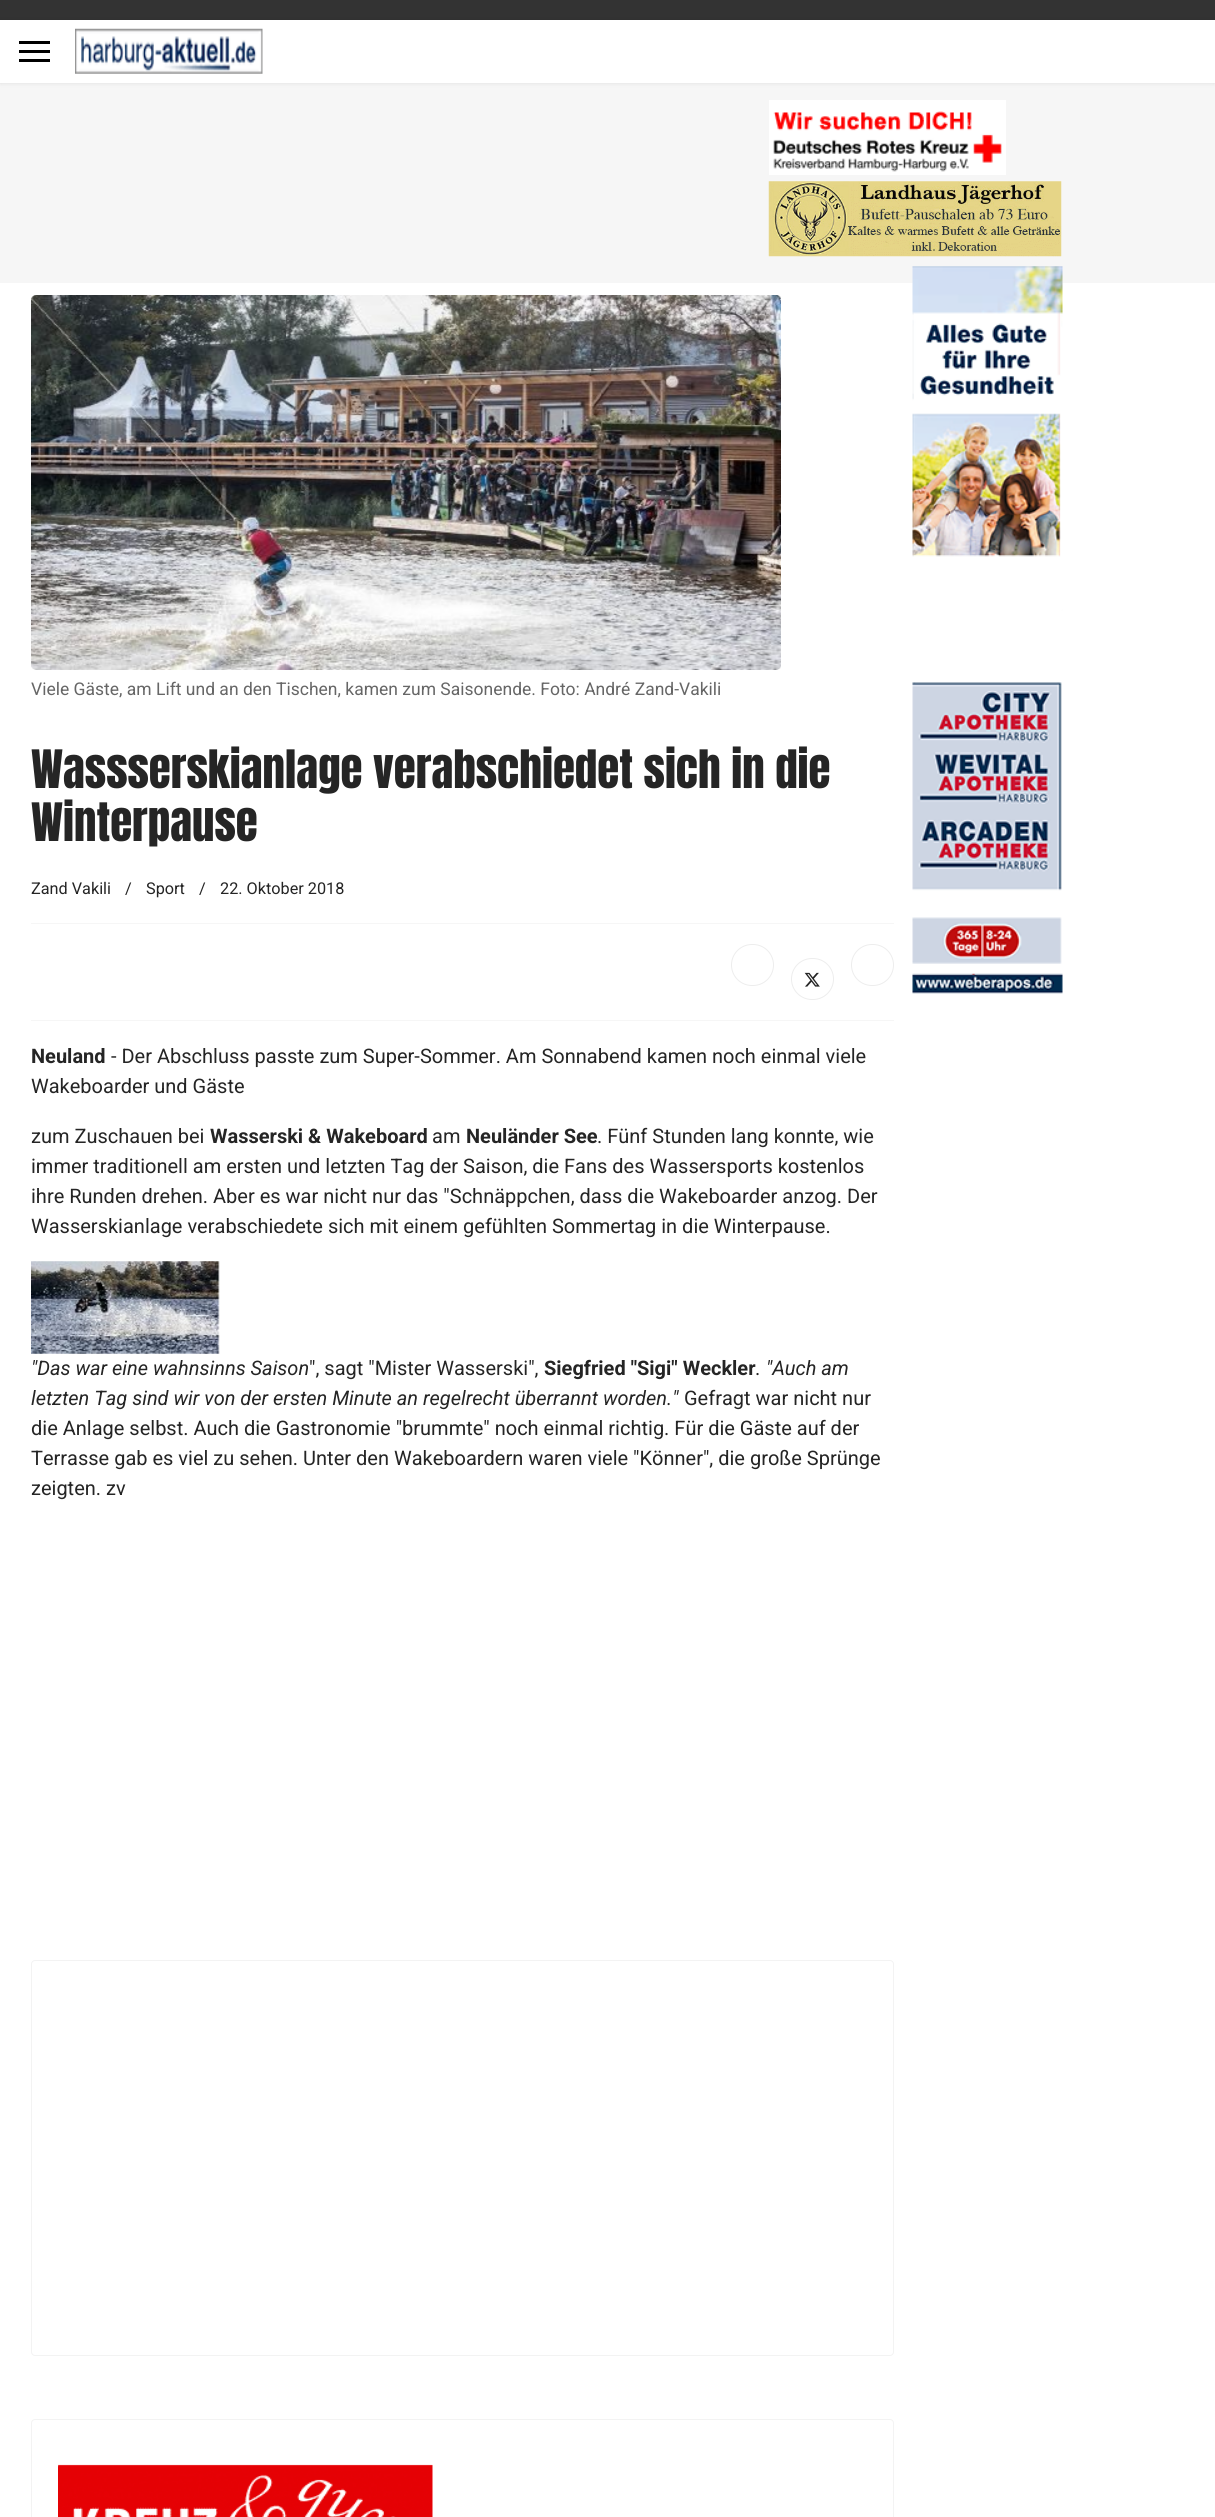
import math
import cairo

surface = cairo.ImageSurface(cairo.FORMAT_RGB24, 1215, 2517)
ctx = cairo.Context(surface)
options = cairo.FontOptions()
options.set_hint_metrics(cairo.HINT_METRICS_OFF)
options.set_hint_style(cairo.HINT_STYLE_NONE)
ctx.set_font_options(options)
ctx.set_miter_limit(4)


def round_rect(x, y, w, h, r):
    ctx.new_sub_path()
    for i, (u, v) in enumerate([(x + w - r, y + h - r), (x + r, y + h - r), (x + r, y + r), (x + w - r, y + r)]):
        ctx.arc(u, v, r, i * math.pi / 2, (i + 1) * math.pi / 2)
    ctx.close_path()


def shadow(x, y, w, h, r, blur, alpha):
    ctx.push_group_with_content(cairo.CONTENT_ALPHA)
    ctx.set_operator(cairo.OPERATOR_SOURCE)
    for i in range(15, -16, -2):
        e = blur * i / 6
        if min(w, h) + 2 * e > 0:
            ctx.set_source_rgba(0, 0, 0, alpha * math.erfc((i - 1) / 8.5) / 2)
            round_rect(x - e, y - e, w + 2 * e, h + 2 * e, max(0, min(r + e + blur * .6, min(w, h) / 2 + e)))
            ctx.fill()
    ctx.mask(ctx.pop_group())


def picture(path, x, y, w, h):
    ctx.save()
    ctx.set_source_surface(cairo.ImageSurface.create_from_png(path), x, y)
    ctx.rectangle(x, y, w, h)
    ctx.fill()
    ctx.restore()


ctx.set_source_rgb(1, 1, 1)
ctx.paint()
ctx.set_source_rgb(0.961, 0.961, 0.961)
ctx.rectangle(0, 83, 1215, 200)
ctx.fill()
picture("img1.png", 769, 100, 237, 75)
picture("img2.png", 768, 181, 294, 76)
ctx.set_source_rgb(0.2, 0.2, 0.2)
ctx.rectangle(0, 0, 1215, 20)
ctx.fill()
ctx.set_source_rgb(0, 0, 0)
shadow(0, 20, 1215, 63, 0, 2.5, 0.1)
ctx.set_source_rgb(1, 1, 1)
ctx.rectangle(0, 20, 1215, 63)
ctx.fill()
ctx.set_source_rgb(0, 0, 0)
ctx.rectangle(19, 41, 31, 3)
ctx.fill()
ctx.rectangle(19, 50, 31, 3)
ctx.fill()
ctx.rectangle(19, 59, 31, 3)
ctx.fill()
picture("img3.png", 75, 28, 188, 46)
picture("img4.png", 31, 295, 750, 375)
ctx.select_font_face("Roboto")
ctx.set_font_size(17.5)
ctx.set_source_rgb(0.4, 0.4, 0.4)
ctx.move_to(31, 695)
ctx.show_text("Viele Gäste, am Lift und an den Tischen, kamen zum Saisonende. Foto: André Zand-Vakili")
ctx.select_font_face("Anton")
ctx.set_font_size(45)
ctx.set_source_rgb(0.145, 0.145, 0.145)
ctx.move_to(31, 788)
ctx.show_text("Wassserskianlage verabschiedet sich in die")
ctx.move_to(31, 841)
ctx.show_text("Winterpause")
ctx.select_font_face("Roboto")
ctx.set_font_size(16.25)
ctx.move_to(31, 894)
ctx.show_text("Zand Vakili")
ctx.move_to(125, 894)
ctx.show_text("/")
ctx.move_to(146, 894)
ctx.show_text("Sport")
ctx.move_to(199, 894)
ctx.show_text("/")
ctx.move_to(220, 894)
ctx.show_text("22. Oktober 2018")
ctx.set_source_rgb(0.961, 0.961, 0.961)
ctx.rectangle(31, 923, 863, 1)
ctx.fill()
ctx.rectangle(31, 1020, 863, 1)
ctx.fill()
round_rect(731.5, 944.5, 42, 41, 20.5)
ctx.set_source_rgb(0.929, 0.929, 0.929)
ctx.set_line_width(1)
ctx.stroke()
round_rect(791.5, 958.5, 42, 41, 20.5)
ctx.stroke()
picture("img5.png", 804, 972, 16, 15)
round_rect(851.5, 944.5, 42, 41, 20.5)
ctx.stroke()
ctx.select_font_face("Roboto", cairo.FONT_SLANT_NORMAL, cairo.FONT_WEIGHT_BOLD)
ctx.set_font_size(20)
ctx.set_source_rgb(0.145, 0.145, 0.145)
ctx.move_to(31, 1063)
ctx.show_text("Neuland")
ctx.select_font_face("Roboto")
ctx.move_to(111, 1063)
ctx.show_text("- Der Abschluss passte zum Super-Sommer. Am Sonnabend kamen noch einmal viele")
ctx.move_to(31, 1093)
ctx.show_text("Wakeboarder und Gäste")
ctx.move_to(31, 1143)
ctx.show_text("zum Zuschauen bei")
ctx.select_font_face("Roboto", cairo.FONT_SLANT_NORMAL, cairo.FONT_WEIGHT_BOLD)
ctx.move_to(210, 1143)
ctx.show_text("Wasserski & Wakeboard")
ctx.select_font_face("Roboto")
ctx.move_to(432, 1143)
ctx.show_text("am")
ctx.select_font_face("Roboto", cairo.FONT_SLANT_NORMAL, cairo.FONT_WEIGHT_BOLD)
ctx.move_to(466, 1143)
ctx.show_text("Neuländer See")
ctx.select_font_face("Roboto")
ctx.move_to(597, 1143)
ctx.show_text(". Fünf Stunden lang konnte, wie")
ctx.move_to(31, 1173)
ctx.show_text("immer traditionell am ersten und letzten Tag der Saison, die Fans des Wassersports kostenlos")
ctx.move_to(31, 1203)
ctx.show_text("ihre Runden drehen. Aber es war nicht nur das \"Schnäppchen, dass die Wakeboarder anzog. Der")
ctx.move_to(31, 1233)
ctx.show_text("Wasserskianlage verabschiedete sich mit einem gefühlten Sommertag in die Winterpause.")
picture("img6.png", 31, 1261, 189, 93)
ctx.select_font_face("Roboto", cairo.FONT_SLANT_ITALIC)
ctx.move_to(31, 1375)
ctx.show_text("\"Das war eine wahnsinns Saison")
ctx.select_font_face("Roboto")
ctx.move_to(309, 1375)
ctx.show_text("\", sagt \"Mister Wasserski\",")
ctx.select_font_face("Roboto", cairo.FONT_SLANT_NORMAL, cairo.FONT_WEIGHT_BOLD)
ctx.move_to(544, 1375)
ctx.show_text("Siegfried \"Sigi\" Weckler")
ctx.select_font_face("Roboto")
ctx.move_to(755, 1375)
ctx.show_text(".")
ctx.select_font_face("Roboto", cairo.FONT_SLANT_ITALIC)
ctx.move_to(766, 1375)
ctx.show_text("\"Auch am")
ctx.move_to(31, 1405)
ctx.show_text("letzten Tag sind wir von der ersten Minute an regelrecht überrannt worden.\"")
ctx.select_font_face("Roboto")
ctx.move_to(684, 1405)
ctx.show_text("Gefragt war nicht nur")
ctx.move_to(31, 1435)
ctx.show_text("die Anlage selbst. Auch die Gastronomie \"brummte\" noch einmal richtig. Für die Gäste auf der")
ctx.move_to(31, 1465)
ctx.show_text("Terrasse gab es viel zu sehen. Unter den Wakeboardern waren viele \"Könner\", die große Sprünge")
ctx.move_to(31, 1495)
ctx.show_text("zeigten. zv")
round_rect(31.5, 1960.5, 862, 395, 3.5)
ctx.set_source_rgb(0.953, 0.953, 0.953)
ctx.stroke()
round_rect(31.5, 2419.5, 862, 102, 3.5)
ctx.stroke()
picture("img7.png", 58, 2464, 375, 53)
picture("img8.png", 912, 266, 151, 728)
surface.write_to_png("page.png")
